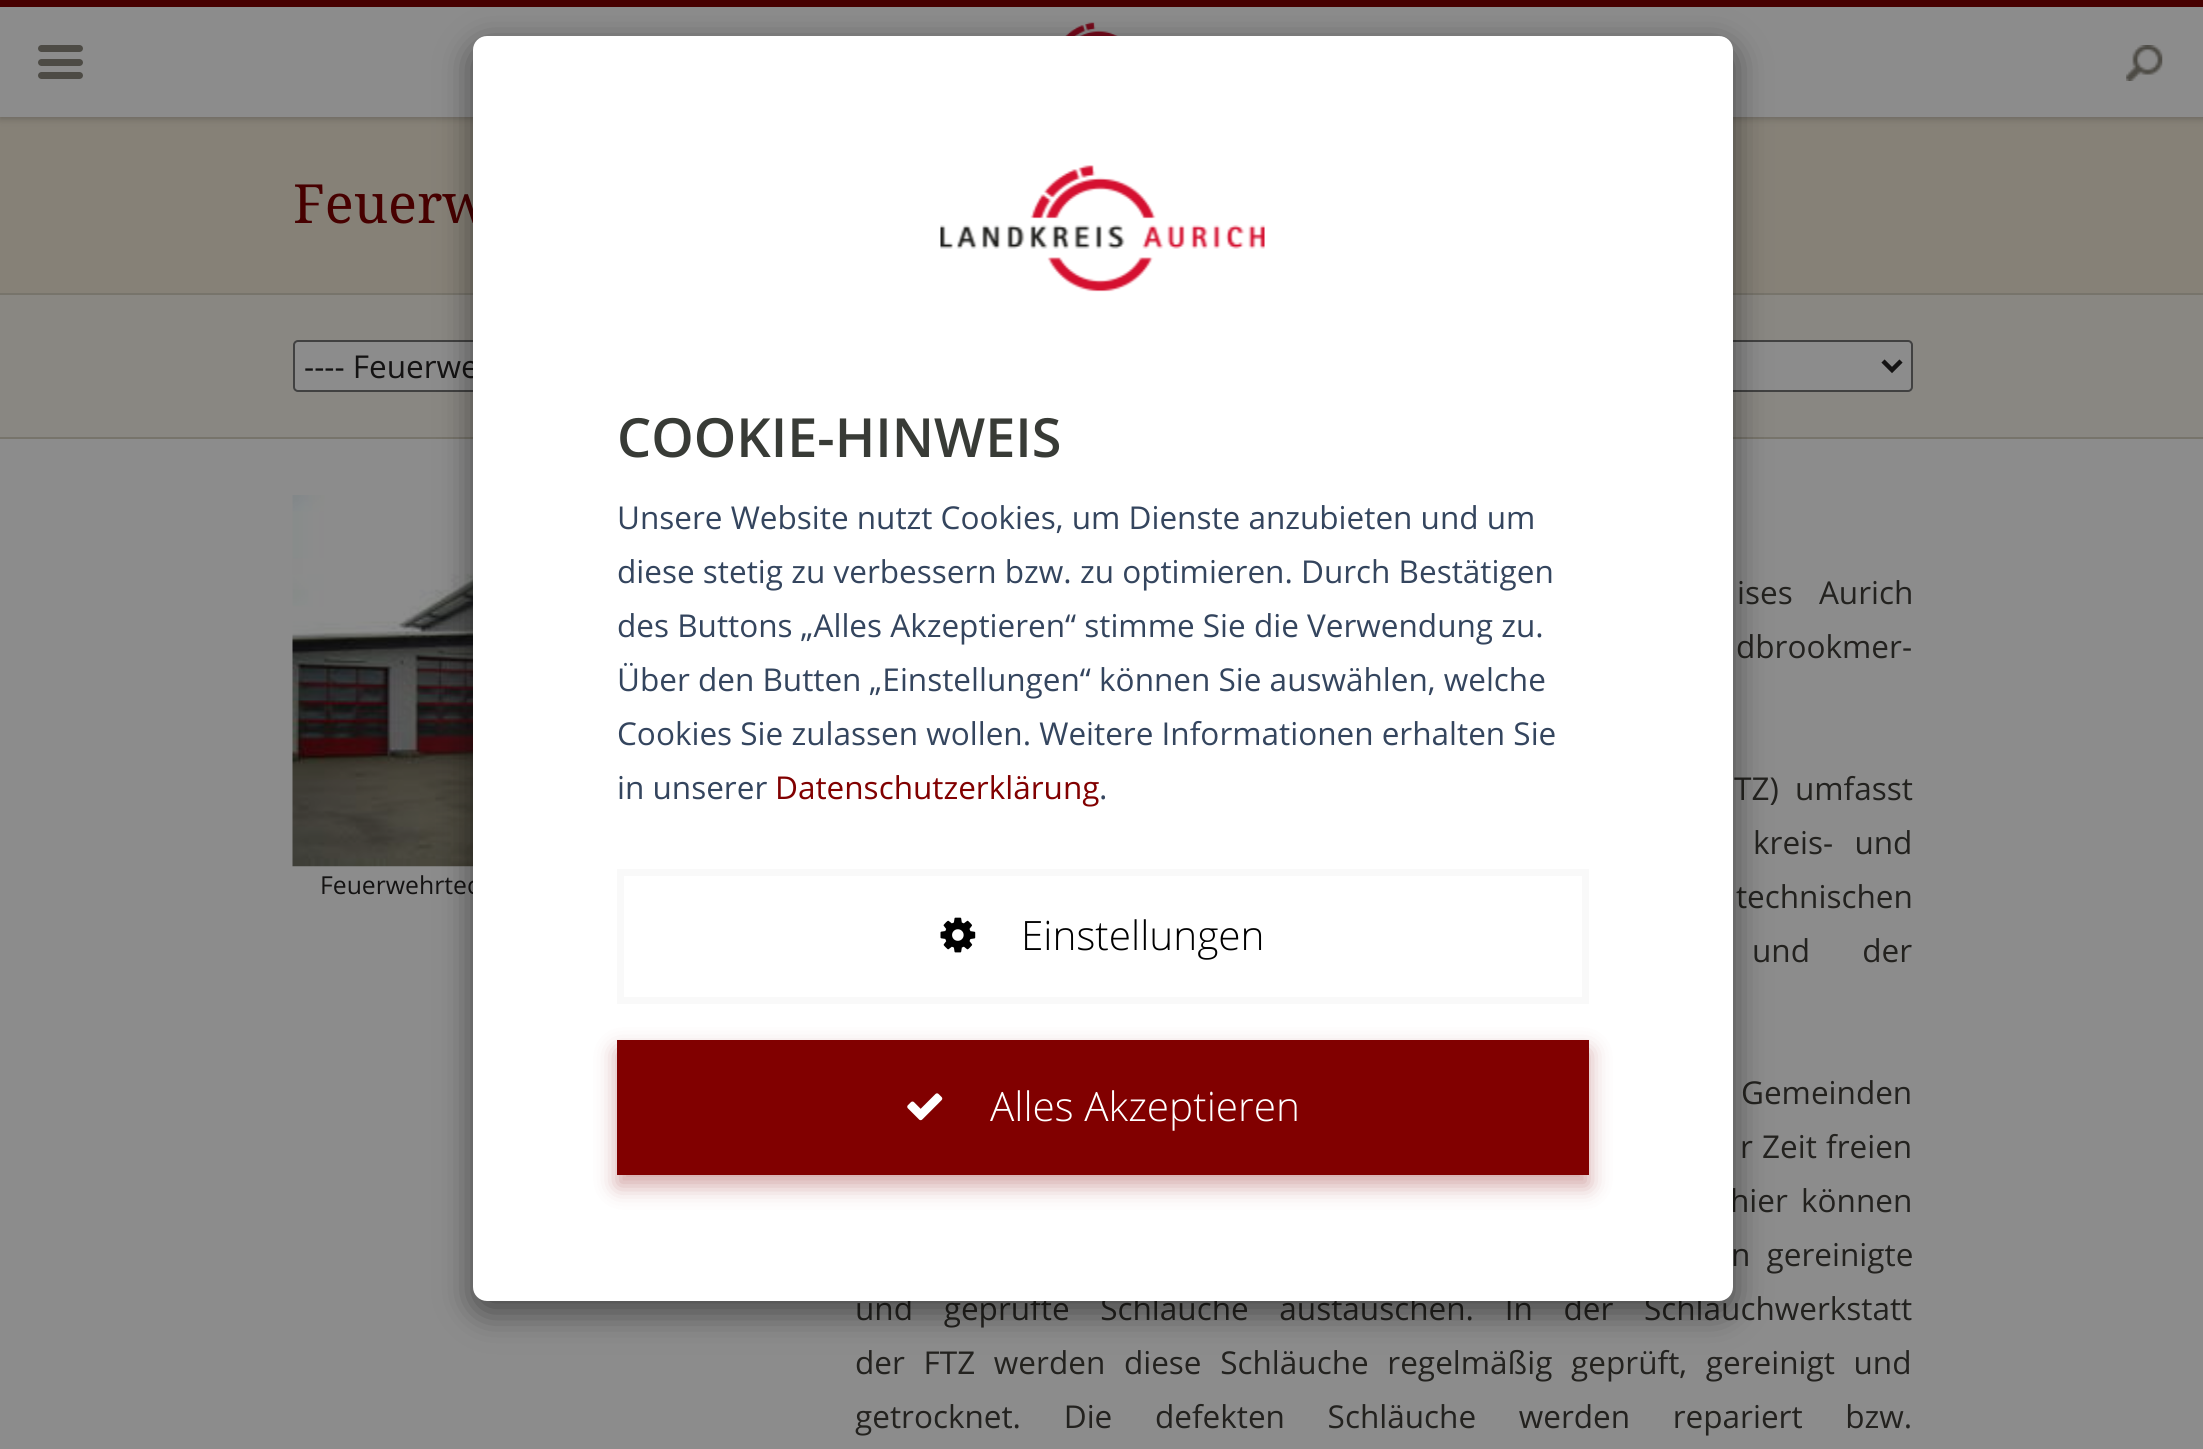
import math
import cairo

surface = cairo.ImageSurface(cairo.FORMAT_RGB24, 2203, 1449)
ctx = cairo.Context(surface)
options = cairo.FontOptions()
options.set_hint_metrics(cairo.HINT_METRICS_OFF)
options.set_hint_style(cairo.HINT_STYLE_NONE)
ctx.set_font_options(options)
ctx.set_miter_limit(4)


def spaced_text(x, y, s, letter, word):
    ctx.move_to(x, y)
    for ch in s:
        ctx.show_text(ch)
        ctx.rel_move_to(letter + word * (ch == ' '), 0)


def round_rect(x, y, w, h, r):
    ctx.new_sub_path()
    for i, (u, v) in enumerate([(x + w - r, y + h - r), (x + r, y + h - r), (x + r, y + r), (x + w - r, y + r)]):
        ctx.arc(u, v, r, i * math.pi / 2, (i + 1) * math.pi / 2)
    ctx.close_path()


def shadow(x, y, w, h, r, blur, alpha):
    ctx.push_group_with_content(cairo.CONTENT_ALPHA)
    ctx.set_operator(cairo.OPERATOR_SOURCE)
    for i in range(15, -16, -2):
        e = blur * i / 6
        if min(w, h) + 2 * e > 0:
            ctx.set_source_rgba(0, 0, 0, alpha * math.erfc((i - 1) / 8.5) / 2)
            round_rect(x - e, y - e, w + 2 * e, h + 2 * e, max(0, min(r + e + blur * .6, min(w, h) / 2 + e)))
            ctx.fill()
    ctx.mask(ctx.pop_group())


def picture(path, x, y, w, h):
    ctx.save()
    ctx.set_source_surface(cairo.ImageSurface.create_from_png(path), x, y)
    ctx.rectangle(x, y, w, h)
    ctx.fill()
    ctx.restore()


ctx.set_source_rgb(0.549, 0.549, 0.549)
ctx.paint()
ctx.set_source_rgb(0.525, 0.506, 0.467)
ctx.rectangle(0, 117, 2203, 176)
ctx.fill()
ctx.set_source_rgb(0, 0, 0)
shadow(0, 2, 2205, 117, 0, 3.5, 0.2)
ctx.set_source_rgb(0.549, 0.549, 0.549)
ctx.rectangle(0, 7, 2203, 110)
ctx.fill()
ctx.set_source_rgb(0.278, 0, 0)
ctx.rectangle(0, 0, 2203, 7)
ctx.fill()
picture("img1.png", 1064, 22, 55, 14)
ctx.set_source_rgb(0.302, 0.294, 0.271)
round_rect(38, 45, 45, 7, 3.5)
ctx.fill()
round_rect(38, 59, 45, 7, 3.5)
ctx.fill()
round_rect(38, 72, 45, 7, 3.5)
ctx.fill()
picture("img2.png", 2126, 45, 37, 36)
ctx.select_font_face("Droid Serif")
ctx.set_font_size(54)
ctx.set_source_rgb(0.278, 0, 0)
ctx.move_to(293, 223)
ctx.show_text("Feuerw")
ctx.set_source_rgb(0.537, 0.529, 0.51)
ctx.rectangle(0, 295, 2203, 142)
ctx.fill()
ctx.set_source_rgb(0.467, 0.455, 0.42)
ctx.rectangle(0, 293, 2203, 2)
ctx.fill()
ctx.rectangle(0, 437, 2203, 2)
ctx.fill()
ctx.set_source_rgb(0.549, 0.549, 0.549)
round_rect(294, 341, 1618, 50, 4)
ctx.fill_preserve()
ctx.set_source_rgb(0.255, 0.255, 0.255)
ctx.stroke()
ctx.new_path()
ctx.move_to(1883, 361)
ctx.line_to(1892, 370)
ctx.line_to(1901, 361)
ctx.set_source_rgb(0.082, 0.078, 0.075)
ctx.set_line_width(4.5)
ctx.stroke()
ctx.select_font_face("Open Sans")
ctx.set_font_size(31.5)
ctx.move_to(304, 378)
ctx.show_text("---- Feuerwe")
picture("img3.png", 292, 495, 181, 372)
ctx.set_font_size(24.75)
ctx.move_to(320, 894)
ctx.show_text("Feuerwehrtec")
ctx.set_font_size(31.5)
ctx.set_source_rgb(0.137, 0.133, 0.122)
spaced_text(1737, 604, "ises Aurich", 0, 18)
spaced_text(1736, 658, "dbrookmer-", 0, 6)
spaced_text(1734, 800, "TZ) umfasst", 0, 8)
spaced_text(1753, 854, "kreis- und", 0, 13)
spaced_text(1736, 908, "technischen", 0, 26)
spaced_text(1752, 962, "und der", 0, 44)
spaced_text(1741, 1104, "Gemeinden", 0, 1)
spaced_text(1740, 1158, "r Zeit freien", 0, 1)
spaced_text(1730, 1212, "hier können", 0, 5)
spaced_text(1731, 1266, "n gereinigte", 0, 8)
spaced_text(855, 1320, "und geprüfte Schläuche austauschen. In der Schlauchwerkstatt", 0, 22.5)
spaced_text(855, 1374, "der FTZ werden diese Schläuche regelmäßig geprüft, gereinigt und", 0, 10.5)
spaced_text(855, 1428, "getrocknet. Die defekten Schläuche werden repariert bzw.", 0, 34.5)
ctx.set_source_rgb(0, 0, 0)
shadow(473, 47, 1260, 1265, 14, 17, 0.5)
ctx.set_source_rgb(1, 1, 1)
round_rect(473, 36, 1260, 1265, 14)
ctx.fill()
picture("img4.png", 940, 165, 325, 127)
ctx.select_font_face("Open Sans SemiBold")
ctx.set_font_size(54)
ctx.set_source_rgb(0.22, 0.231, 0.212)
ctx.move_to(617, 457)
ctx.show_text("COOKIE-HINWEIS")
ctx.select_font_face("Open Sans")
ctx.set_font_size(31.5)
ctx.set_source_rgb(0.204, 0.271, 0.369)
ctx.move_to(617, 529)
ctx.show_text("Unsere Website nutzt Cookies, um Dienste anzubieten und um")
ctx.move_to(617, 583)
ctx.show_text("diese stetig zu verbessern bzw. zu optimieren. Durch Bestätigen")
ctx.move_to(617, 637)
ctx.show_text("des Buttons „Alles Akzeptieren“ stimme Sie die Verwendung zu.")
ctx.move_to(617, 691)
ctx.show_text("Über den Butten „Einstellungen“ können Sie auswählen, welche")
ctx.move_to(617, 745)
ctx.show_text("Cookies Sie zulassen wollen. Weitere Informationen erhalten Sie")
ctx.move_to(617, 799)
ctx.show_text("in unserer")
ctx.set_source_rgb(0.506, 0, 0)
ctx.move_to(775, 799)
ctx.show_text("Datenschutzerklärung")
ctx.set_source_rgb(0.204, 0.271, 0.369)
ctx.move_to(1099, 799)
ctx.show_text(".")
ctx.rectangle(620.5, 872.5, 965, 128)
ctx.set_source_rgb(0.973, 0.973, 0.973)
ctx.set_line_width(7)
ctx.stroke()
picture("img5.png", 940, 917, 36, 36)
ctx.select_font_face("Open Sans Light")
ctx.set_font_size(40.5)
ctx.set_source_rgb(0, 0, 0)
ctx.move_to(1021, 950)
ctx.show_text("Einstellungen")
ctx.set_source_rgb(0.506, 0, 0)
shadow(617, 1051, 972, 135, 0, 11, 0.35)
ctx.set_source_rgb(0.506, 0, 0)
ctx.rectangle(617, 1040, 972, 135)
ctx.fill()
picture("img6.png", 907, 1093, 36, 28)
ctx.set_source_rgb(1, 1, 1)
ctx.move_to(990, 1121)
ctx.show_text("Alles Akzeptieren")
surface.write_to_png("page.png")
